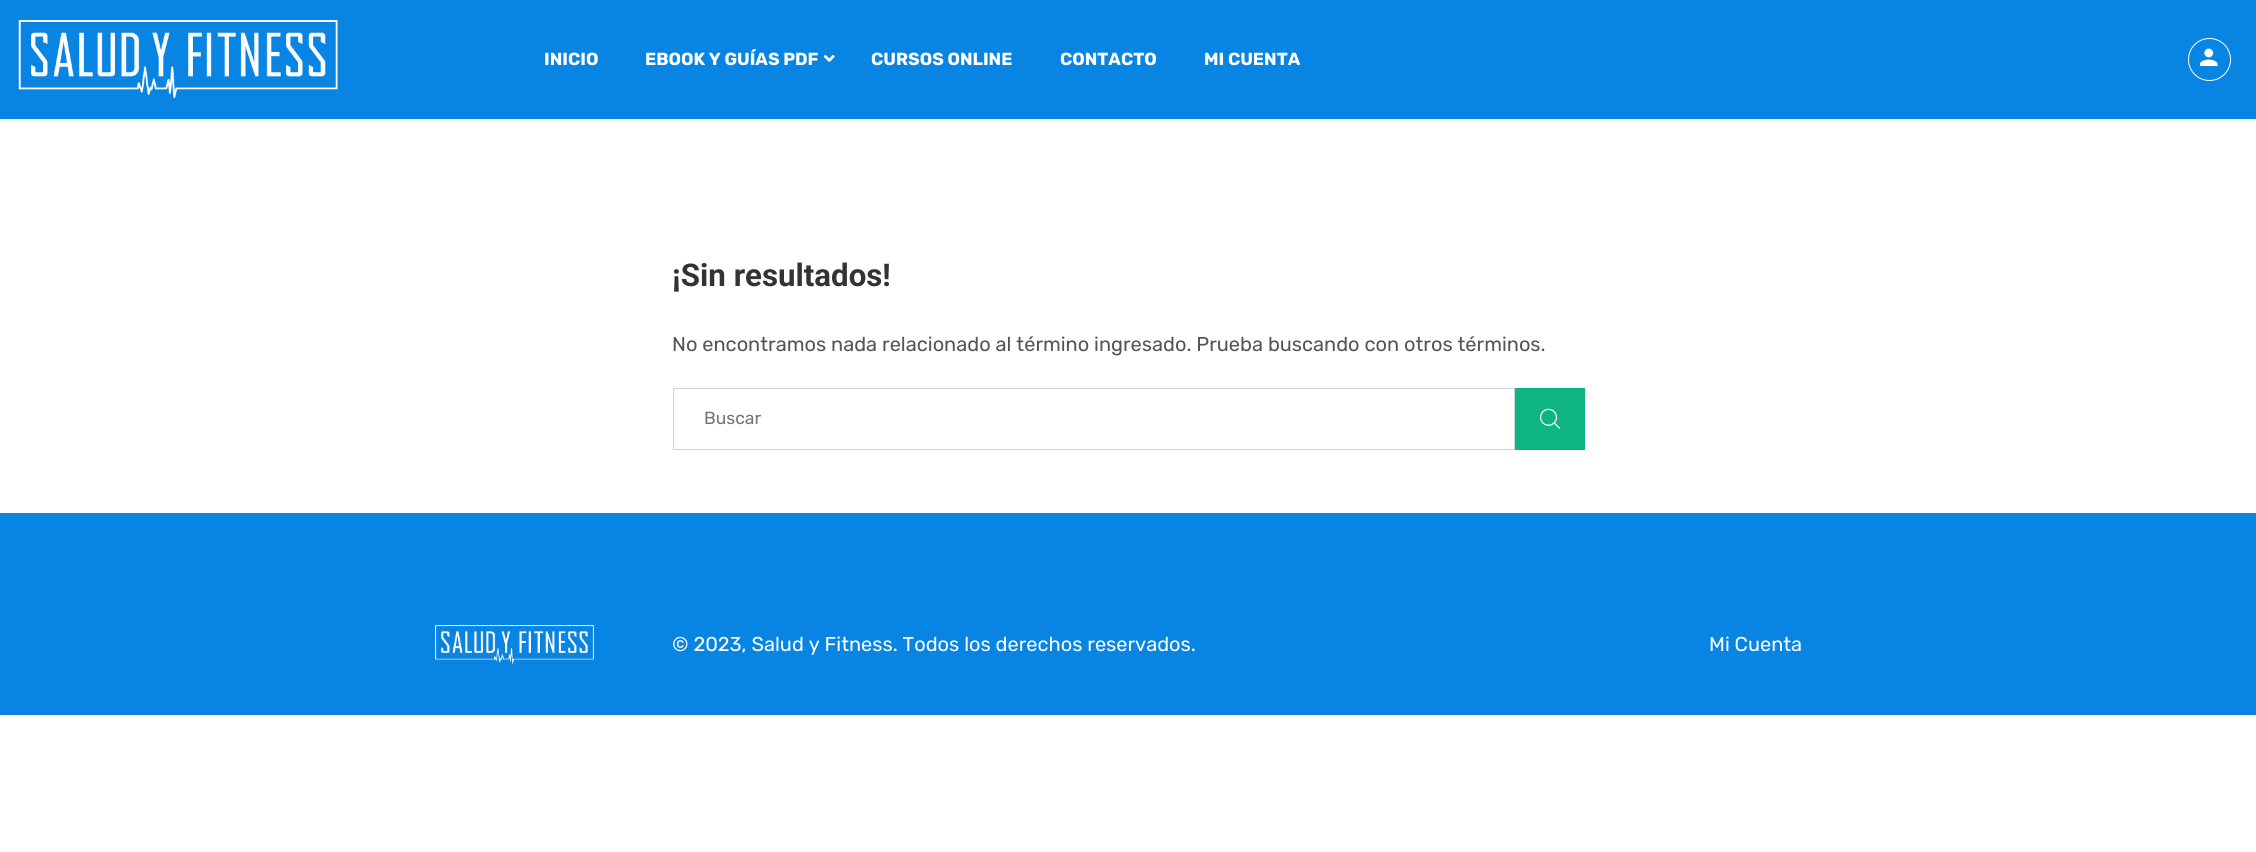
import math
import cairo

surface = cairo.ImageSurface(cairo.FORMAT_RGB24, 2256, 852)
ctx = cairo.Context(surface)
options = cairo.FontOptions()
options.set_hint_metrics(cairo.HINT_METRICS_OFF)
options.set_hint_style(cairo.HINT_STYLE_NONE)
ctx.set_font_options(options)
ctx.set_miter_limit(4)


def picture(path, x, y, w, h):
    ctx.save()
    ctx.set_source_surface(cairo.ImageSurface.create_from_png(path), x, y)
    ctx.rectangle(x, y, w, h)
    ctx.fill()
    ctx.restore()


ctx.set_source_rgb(1, 1, 1)
ctx.paint()
ctx.set_source_rgb(0.035, 0.518, 0.89)
ctx.rectangle(0, 0, 2256, 119)
ctx.fill()
picture("img1.png", 18, 20, 320, 78)
ctx.select_font_face("Rubik", cairo.FONT_SLANT_NORMAL, cairo.FONT_WEIGHT_BOLD)
ctx.set_font_size(17.5)
ctx.set_source_rgb(1, 1, 1)
ctx.move_to(544, 65)
ctx.show_text("INICIO")
ctx.move_to(645, 65)
ctx.show_text("EBOOK Y GUÍAS PDF")
picture("img2.png", 823, 55, 12, 7)
ctx.move_to(871, 65)
ctx.show_text("CURSOS ONLINE")
ctx.move_to(1060, 65)
ctx.show_text("CONTACTO")
ctx.move_to(1204, 65)
ctx.show_text("MI CUENTA")
ctx.new_path()
ctx.arc(2209.5, 59.5, 21, 0, 2 * math.pi)
ctx.set_line_width(1)
ctx.stroke()
picture("img3.png", 2200, 48, 18, 19)
ctx.select_font_face("Roboto", cairo.FONT_SLANT_NORMAL, cairo.FONT_WEIGHT_BOLD)
ctx.set_font_size(31.25)
ctx.set_source_rgb(0.2, 0.2, 0.2)
ctx.move_to(672, 286)
ctx.show_text("¡Sin resultados!")
ctx.select_font_face("Rubik")
ctx.set_font_size(20)
ctx.set_source_rgb(0.333, 0.333, 0.333)
ctx.move_to(672, 351)
ctx.show_text("No encontramos nada relacionado al término ingresado. Prueba buscando con otros términos.")
ctx.rectangle(673.5, 388.5, 841, 61)
ctx.set_source_rgb(0.808, 0.831, 0.855)
ctx.stroke()
ctx.set_font_size(17.5)
ctx.set_source_rgb(0.424, 0.459, 0.49)
ctx.move_to(704, 424)
ctx.show_text("Buscar")
ctx.set_source_rgb(0.055, 0.71, 0.51)
ctx.rectangle(1515, 388, 70, 62)
ctx.fill()
picture("img4.png", 1540, 408, 20, 21)
ctx.set_source_rgb(0.035, 0.518, 0.89)
ctx.rectangle(0, 513, 2256, 202)
ctx.fill()
picture("img5.png", 435, 625, 159, 39)
ctx.set_font_size(20)
ctx.set_source_rgb(1, 1, 1)
ctx.move_to(672, 651)
ctx.show_text("© 2023, Salud y Fitness. Todos los derechos reservados.")
ctx.move_to(1709, 651)
ctx.show_text("Mi Cuenta")
surface.write_to_png("page.png")
